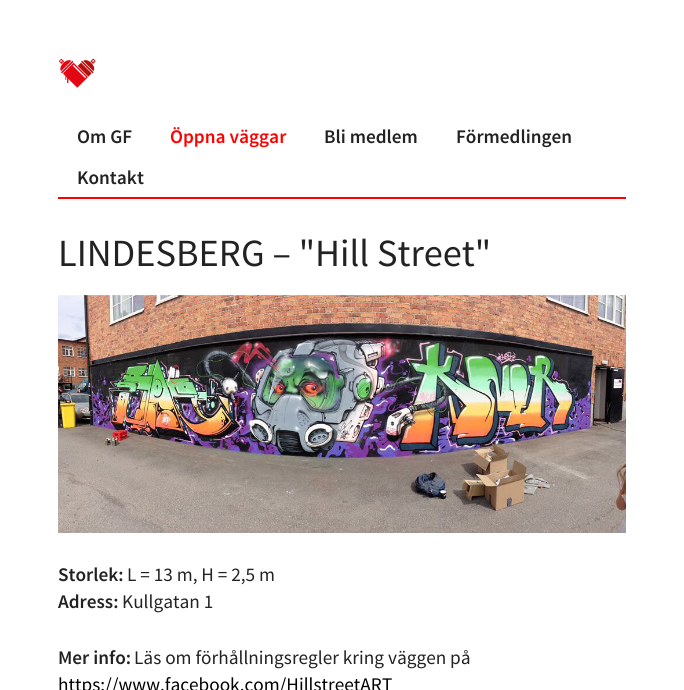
import math
import cairo

surface = cairo.ImageSurface(cairo.FORMAT_RGB24, 684, 690)
ctx = cairo.Context(surface)
options = cairo.FontOptions()
options.set_hint_metrics(cairo.HINT_METRICS_OFF)
options.set_hint_style(cairo.HINT_STYLE_NONE)
ctx.set_font_options(options)
ctx.set_miter_limit(4)


def picture(path, x, y, w, h):
    ctx.save()
    ctx.set_source_surface(cairo.ImageSurface.create_from_png(path), x, y)
    ctx.rectangle(x, y, w, h)
    ctx.fill()
    ctx.restore()


ctx.set_source_rgb(1, 1, 1)
ctx.paint()
ctx.set_source_rgb(1, 0, 0)
ctx.rectangle(58, 197, 568, 2)
ctx.fill()
picture("img1.png", 59, 58, 37, 30)
ctx.select_font_face("Source Sans Pro SemiBold")
ctx.set_font_size(19.25)
ctx.set_source_rgb(0.133, 0.133, 0.133)
ctx.move_to(77, 143)
ctx.show_text("Om GF")
ctx.set_source_rgb(1, 0, 0)
ctx.move_to(170, 143)
ctx.show_text("Öppna väggar")
ctx.set_source_rgb(0.133, 0.133, 0.133)
ctx.move_to(324, 143)
ctx.show_text("Bli medlem")
ctx.move_to(456, 143)
ctx.show_text("Förmedlingen")
ctx.move_to(77, 184)
ctx.show_text("Kontakt")
ctx.select_font_face("Source Sans Pro")
ctx.set_font_size(38.4)
ctx.move_to(58, 266)
ctx.show_text("LINDESBERG – \"Hill Street\"")
picture("img2.png", 58, 295, 568, 238)
ctx.select_font_face("Source Sans Pro SemiBold")
ctx.set_font_size(19.25)
ctx.move_to(58, 581)
ctx.show_text("Storlek:")
ctx.select_font_face("Source Sans Pro")
ctx.move_to(127, 581)
ctx.show_text("L = 13 m, H = 2,5 m")
ctx.select_font_face("Source Sans Pro SemiBold")
ctx.move_to(58, 608)
ctx.show_text("Adress:")
ctx.select_font_face("Source Sans Pro")
ctx.move_to(122, 608)
ctx.show_text("Kullgatan 1")
ctx.select_font_face("Source Sans Pro SemiBold")
ctx.move_to(58, 664)
ctx.show_text("Mer info:")
ctx.select_font_face("Source Sans Pro")
ctx.move_to(134, 664)
ctx.show_text("Läs om förhållningsregler kring väggen på")
ctx.set_source_rgb(0, 0, 0)
ctx.move_to(58, 691)
ctx.show_text("https://www.facebook.com/HillstreetART")
surface.write_to_png("page.png")
